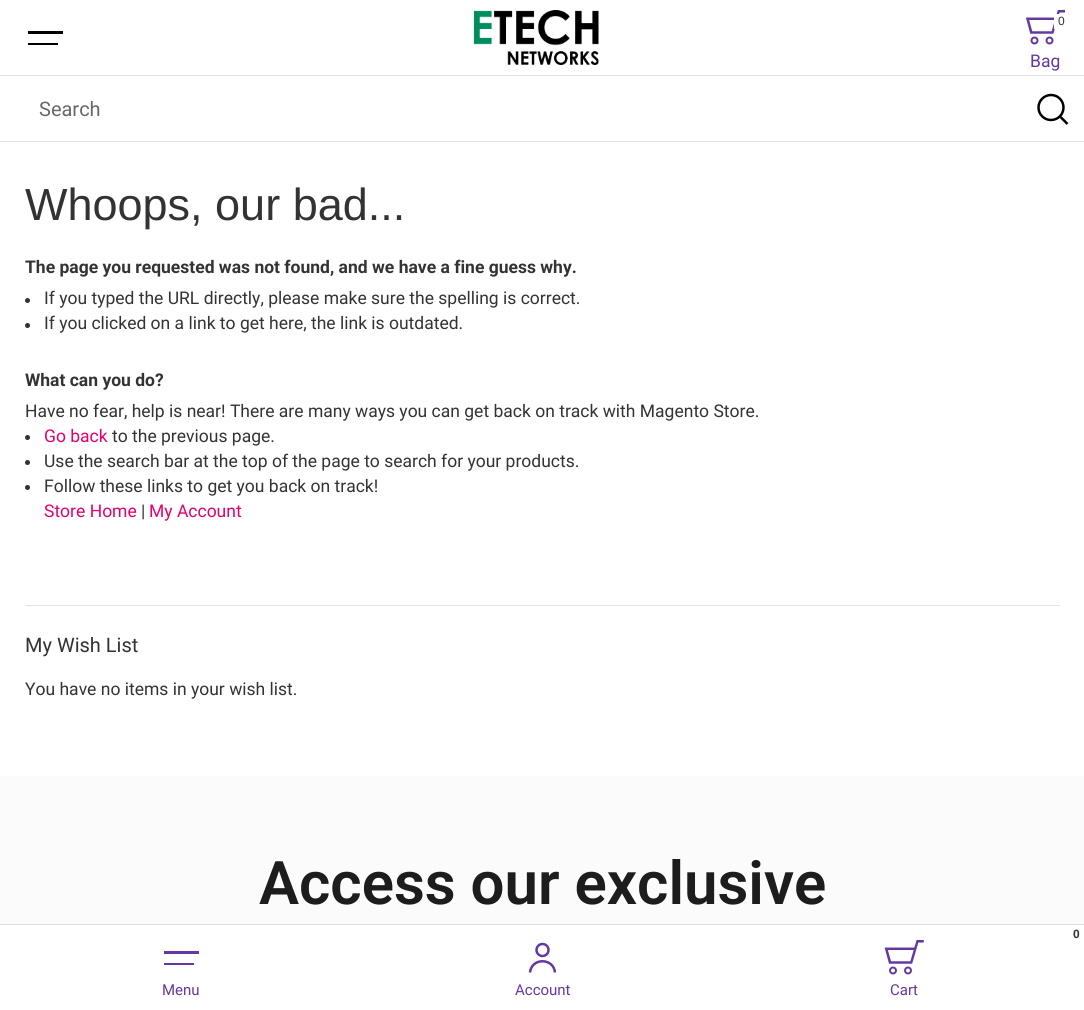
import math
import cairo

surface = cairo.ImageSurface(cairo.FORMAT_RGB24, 1084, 1010)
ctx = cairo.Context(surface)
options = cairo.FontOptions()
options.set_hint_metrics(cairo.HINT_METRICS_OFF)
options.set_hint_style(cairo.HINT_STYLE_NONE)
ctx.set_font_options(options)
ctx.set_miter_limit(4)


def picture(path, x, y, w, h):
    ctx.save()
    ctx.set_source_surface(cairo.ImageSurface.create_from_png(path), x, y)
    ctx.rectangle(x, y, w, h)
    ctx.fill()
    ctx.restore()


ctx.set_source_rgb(1, 1, 1)
ctx.paint()
ctx.set_source_rgb(0.878, 0.878, 0.878)
ctx.rectangle(0, 141, 1084, 1)
ctx.fill()
ctx.set_source_rgb(0, 0, 0)
ctx.rectangle(28, 31, 35, 3)
ctx.fill()
ctx.rectangle(28, 43, 30, 2)
ctx.fill()
picture("img1.png", 473, 10, 126, 55)
picture("img2.png", 1025, 10, 40, 35)
ctx.set_source_rgb(1, 1, 1)
ctx.rectangle(1054, 14, 6, 15)
ctx.fill()
ctx.select_font_face("Liberation Sans")
ctx.set_font_size(12)
ctx.set_source_rgb(0.2, 0.2, 0.2)
ctx.move_to(1058, 25)
ctx.show_text("0")
ctx.select_font_face("Roboto")
ctx.set_font_size(17.5)
ctx.set_source_rgb(0.388, 0.22, 0.639)
ctx.move_to(1030, 67)
ctx.show_text("Bag")
ctx.set_source_rgb(0.878, 0.878, 0.878)
ctx.rectangle(0, 75, 1084, 1)
ctx.fill()
ctx.set_font_size(20)
ctx.set_source_rgb(0.408, 0.408, 0.408)
ctx.move_to(39, 116)
ctx.show_text("Search")
ctx.new_path()
ctx.arc(1051, 107.5, 12.5, 0, 2 * math.pi)
ctx.set_source_rgb(0, 0, 0)
ctx.set_line_width(2.5)
ctx.stroke()
ctx.new_path()
ctx.move_to(1067.5, 124)
ctx.line_to(1060.5, 117)
ctx.stroke()
ctx.select_font_face("Liberation Sans")
ctx.set_font_size(45)
ctx.set_source_rgb(0.2, 0.2, 0.2)
ctx.move_to(25, 220)
ctx.show_text("Whoops, our bad...")
ctx.select_font_face("Roboto", cairo.FONT_SLANT_NORMAL, cairo.FONT_WEIGHT_BOLD)
ctx.set_font_size(17.5)
ctx.move_to(25, 273)
ctx.show_text("The page you requested was not found, and we have a fine guess why.")
ctx.new_path()
ctx.arc(27.5, 300.5, 2.5, 0, 2 * math.pi)
ctx.fill()
ctx.select_font_face("Roboto")
ctx.move_to(44, 304)
ctx.show_text("If you typed the URL directly, please make sure the spelling is correct.")
ctx.new_path()
ctx.arc(27.5, 325.5, 2.5, 0, 2 * math.pi)
ctx.fill()
ctx.move_to(44, 329)
ctx.show_text("If you clicked on a link to get here, the link is outdated.")
ctx.select_font_face("Roboto", cairo.FONT_SLANT_NORMAL, cairo.FONT_WEIGHT_BOLD)
ctx.move_to(25, 386)
ctx.show_text("What can you do?")
ctx.select_font_face("Roboto")
ctx.move_to(25, 417)
ctx.show_text("Have no fear, help is near! There are many ways you can get back on track with Magento Store.")
ctx.new_path()
ctx.arc(27.5, 437.5, 2.5, 0, 2 * math.pi)
ctx.fill()
ctx.set_source_rgb(0.898, 0, 0.427)
ctx.move_to(44, 442)
ctx.show_text("Go back")
ctx.set_source_rgb(0.2, 0.2, 0.2)
ctx.move_to(112, 442)
ctx.show_text("to the previous page.")
ctx.new_path()
ctx.arc(27.5, 462.5, 2.5, 0, 2 * math.pi)
ctx.fill()
ctx.move_to(44, 467)
ctx.show_text("Use the search bar at the top of the page to search for your products.")
ctx.new_path()
ctx.arc(27.5, 487.5, 2.5, 0, 2 * math.pi)
ctx.fill()
ctx.move_to(44, 492)
ctx.show_text("Follow these links to get you back on track!")
ctx.set_source_rgb(0.898, 0, 0.427)
ctx.move_to(44, 517)
ctx.show_text("Store Home")
ctx.set_source_rgb(0.2, 0.2, 0.2)
ctx.move_to(141, 517)
ctx.show_text("|")
ctx.set_source_rgb(0.898, 0, 0.427)
ctx.move_to(149, 517)
ctx.show_text("My Account")
ctx.set_source_rgb(0.894, 0.894, 0.894)
ctx.rectangle(25, 605, 1035, 1)
ctx.fill()
ctx.set_font_size(20)
ctx.set_source_rgb(0.2, 0.2, 0.2)
ctx.move_to(25, 652)
ctx.show_text("My Wish List")
ctx.set_font_size(17.5)
ctx.move_to(25, 695)
ctx.show_text("You have no items in your wish list.")
ctx.set_source_rgb(0.984, 0.984, 0.984)
ctx.rectangle(0, 776, 1084, 148)
ctx.fill()
ctx.select_font_face("Roboto SemiBold")
ctx.set_font_size(60)
ctx.set_source_rgb(0.114, 0.114, 0.114)
ctx.move_to(259, 904)
ctx.show_text("Access our exclusive")
ctx.set_source_rgb(0.878, 0.878, 0.878)
ctx.rectangle(0, 924, 1084, 1)
ctx.fill()
ctx.set_source_rgb(0.388, 0.22, 0.639)
ctx.rectangle(164, 951, 35, 3)
ctx.fill()
ctx.rectangle(164, 963, 30, 2)
ctx.fill()
ctx.select_font_face("Roboto")
ctx.set_font_size(15)
ctx.move_to(162, 995)
ctx.show_text("Menu")
ctx.new_path()
ctx.arc(542.5, 950, 6, 0, 2 * math.pi)
ctx.stroke()
ctx.new_path()
ctx.move_to(530, 972.5)
ctx.curve_to(531.5, 957.5, 553.5, 957.5, 555, 972.5)
ctx.stroke()
ctx.move_to(515, 995)
ctx.show_text("Account")
ctx.select_font_face("Liberation Sans", cairo.FONT_SLANT_NORMAL, cairo.FONT_WEIGHT_BOLD)
ctx.set_font_size(12)
ctx.set_source_rgb(0.2, 0.2, 0.2)
ctx.move_to(1073, 938)
ctx.show_text("0")
picture("img3.png", 884, 940, 40, 35)
ctx.select_font_face("Roboto")
ctx.set_font_size(15)
ctx.set_source_rgb(0.388, 0.22, 0.639)
ctx.move_to(890, 995)
ctx.show_text("Cart")
surface.write_to_png("page.png")
